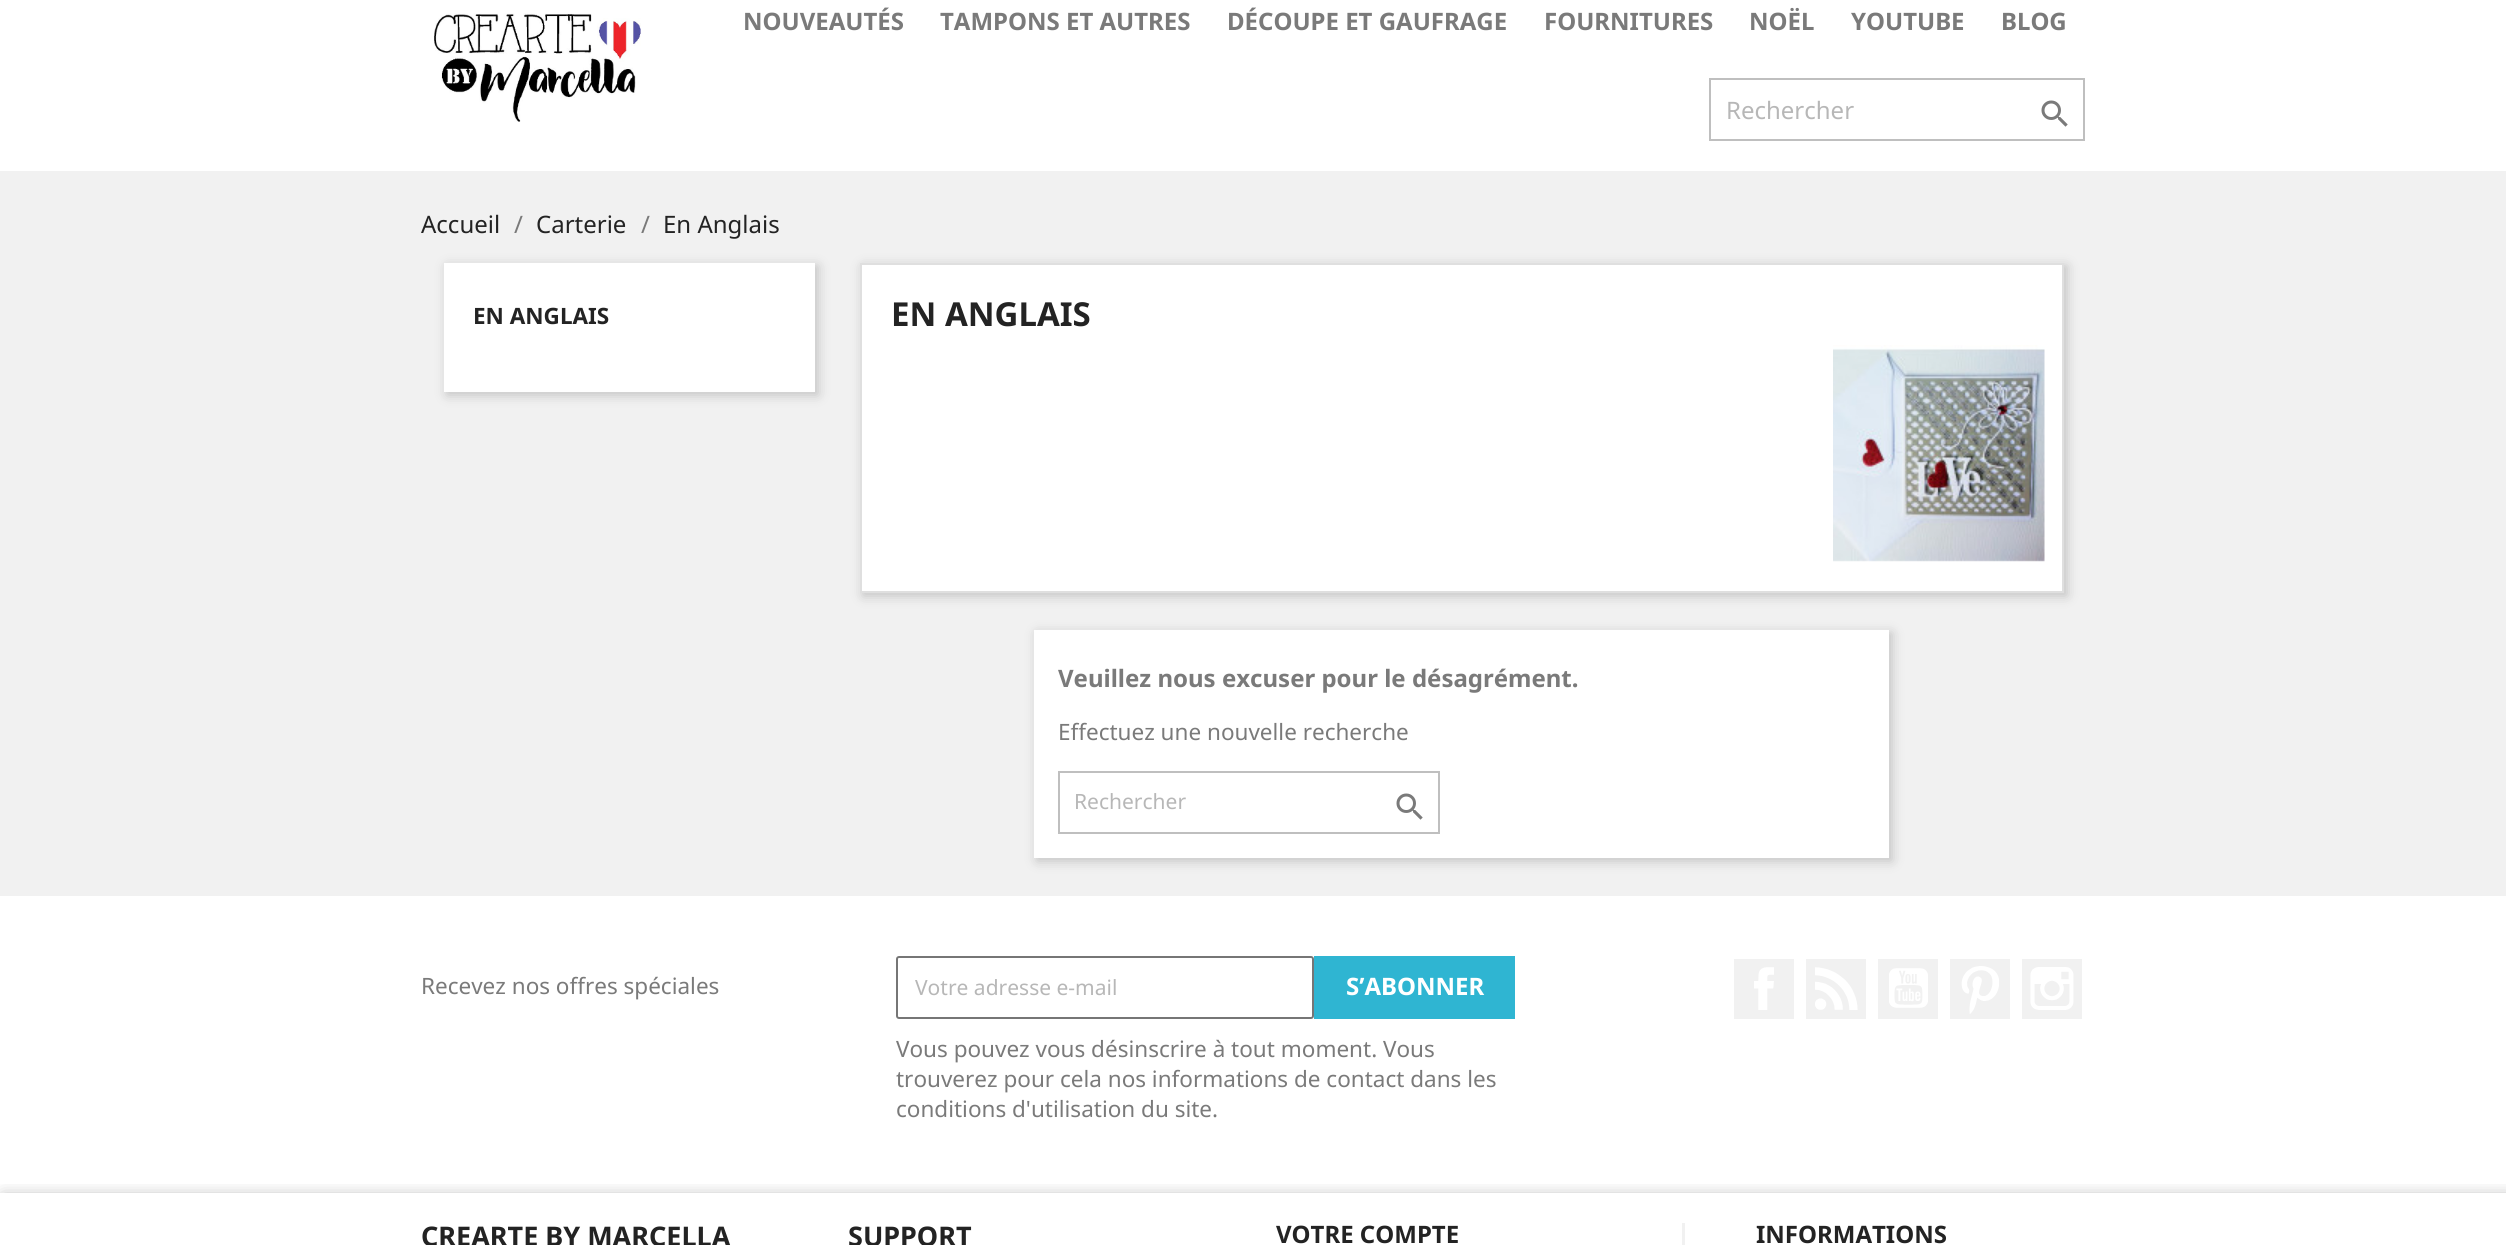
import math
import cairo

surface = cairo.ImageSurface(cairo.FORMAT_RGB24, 2506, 1245)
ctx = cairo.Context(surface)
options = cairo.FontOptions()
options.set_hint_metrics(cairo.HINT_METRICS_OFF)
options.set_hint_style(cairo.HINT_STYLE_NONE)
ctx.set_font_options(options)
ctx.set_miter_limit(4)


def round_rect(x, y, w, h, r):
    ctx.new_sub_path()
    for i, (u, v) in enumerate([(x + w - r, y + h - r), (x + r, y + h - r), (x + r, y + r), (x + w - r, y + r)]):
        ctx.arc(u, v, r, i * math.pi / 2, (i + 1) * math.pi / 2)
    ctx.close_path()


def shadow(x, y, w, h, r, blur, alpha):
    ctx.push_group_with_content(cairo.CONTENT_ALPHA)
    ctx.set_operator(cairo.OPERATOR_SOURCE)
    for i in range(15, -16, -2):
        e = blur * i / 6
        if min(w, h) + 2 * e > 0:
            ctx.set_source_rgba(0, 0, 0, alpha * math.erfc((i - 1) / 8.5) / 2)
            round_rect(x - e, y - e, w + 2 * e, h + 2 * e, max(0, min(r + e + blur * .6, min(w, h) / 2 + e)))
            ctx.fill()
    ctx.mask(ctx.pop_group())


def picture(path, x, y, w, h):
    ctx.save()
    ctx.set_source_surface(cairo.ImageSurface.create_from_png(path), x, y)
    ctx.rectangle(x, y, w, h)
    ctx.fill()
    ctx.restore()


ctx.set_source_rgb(1, 1, 1)
ctx.paint()
picture("img1.png", 434, 13, 207, 109)
ctx.select_font_face("Noto Sans", cairo.FONT_SLANT_NORMAL, cairo.FONT_WEIGHT_BOLD)
ctx.set_font_size(24)
ctx.set_source_rgb(0.478, 0.478, 0.478)
ctx.move_to(743, 30)
ctx.show_text("NOUVEAUTÉS")
ctx.move_to(940, 30)
ctx.show_text("TAMPONS ET AUTRES")
ctx.move_to(1227, 30)
ctx.show_text("DÉCOUPE ET GAUFRAGE")
ctx.move_to(1544, 30)
ctx.show_text("FOURNITURES")
ctx.move_to(1749, 30)
ctx.show_text("NOËL")
ctx.move_to(1851, 30)
ctx.show_text("YOUTUBE")
ctx.move_to(2001, 30)
ctx.show_text("BLOG")
ctx.rectangle(1710, 79, 374, 61)
ctx.set_source_rgb(0.749, 0.749, 0.749)
ctx.stroke()
ctx.select_font_face("Noto Sans")
ctx.set_source_rgb(0.718, 0.718, 0.718)
ctx.move_to(1726, 119)
ctx.show_text("Rechercher")
picture("img2.png", 2041, 100, 27, 27)
ctx.set_source_rgb(0.945, 0.945, 0.945)
ctx.rectangle(0, 171, 2506, 725)
ctx.fill()
ctx.set_source_rgb(0.137, 0.137, 0.137)
ctx.move_to(421, 233)
ctx.show_text("Accueil")
ctx.set_source_rgb(0.478, 0.478, 0.478)
ctx.move_to(514, 233)
ctx.show_text("/")
ctx.set_source_rgb(0.137, 0.137, 0.137)
ctx.move_to(536, 233)
ctx.show_text("Carterie")
ctx.set_source_rgb(0.478, 0.478, 0.478)
ctx.move_to(641, 233)
ctx.show_text("/")
ctx.set_source_rgb(0.137, 0.137, 0.137)
ctx.move_to(663, 233)
ctx.show_text("En Anglais")
ctx.set_source_rgb(0, 0, 0)
shadow(447, 266, 371, 129, 0, 6, 0.2)
ctx.set_source_rgb(1, 1, 1)
ctx.rectangle(444, 263, 371, 129)
ctx.fill()
ctx.select_font_face("Noto Sans", cairo.FONT_SLANT_NORMAL, cairo.FONT_WEIGHT_BOLD)
ctx.set_font_size(22.5)
ctx.set_source_rgb(0.137, 0.137, 0.137)
ctx.move_to(473, 324)
ctx.show_text("EN ANGLAIS")
ctx.set_source_rgb(0, 0, 0)
shadow(863, 266, 1204, 330, 0, 6, 0.2)
ctx.set_source_rgb(1, 1, 1)
ctx.rectangle(861, 264, 1202, 328)
ctx.fill_preserve()
ctx.set_source_rgb(0.875, 0.875, 0.875)
ctx.stroke()
ctx.set_font_size(33)
ctx.set_source_rgb(0.137, 0.137, 0.137)
ctx.move_to(891, 326)
ctx.show_text("EN ANGLAIS")
picture("img3.png", 1833, 345, 212, 217)
ctx.set_source_rgb(0, 0, 0)
shadow(1037, 633, 855, 228, 0, 6, 0.2)
ctx.set_source_rgb(1, 1, 1)
ctx.rectangle(1034, 630, 855, 228)
ctx.fill()
ctx.set_font_size(24)
ctx.set_source_rgb(0.478, 0.478, 0.478)
ctx.move_to(1058, 687)
ctx.show_text("Veuillez nous excuser pour le désagrément.")
ctx.select_font_face("Noto Sans")
ctx.set_font_size(22.5)
ctx.move_to(1058, 740)
ctx.show_text("Effectuez une nouvelle recherche")
ctx.rectangle(1059, 772, 380, 61)
ctx.set_source_rgb(0.749, 0.749, 0.749)
ctx.stroke()
ctx.set_font_size(21)
ctx.set_source_rgb(0.718, 0.718, 0.718)
ctx.move_to(1074, 809)
ctx.show_text("Rechercher")
picture("img2.png", 1396, 793, 27, 27)
ctx.set_font_size(22.5)
ctx.set_source_rgb(0.478, 0.478, 0.478)
ctx.move_to(421, 994)
ctx.show_text("Recevez nos offres spéciales")
round_rect(897, 957, 416, 61, 2)
ctx.set_source_rgb(0.463, 0.463, 0.463)
ctx.stroke()
ctx.set_font_size(21)
ctx.set_source_rgb(0.718, 0.718, 0.718)
ctx.move_to(915, 995)
ctx.show_text("Votre adresse e-mail")
ctx.set_source_rgb(0.184, 0.71, 0.824)
ctx.rectangle(1314, 956, 201, 63)
ctx.fill()
ctx.select_font_face("Noto Sans", cairo.FONT_SLANT_NORMAL, cairo.FONT_WEIGHT_BOLD)
ctx.set_font_size(24)
ctx.set_source_rgb(1, 1, 1)
ctx.move_to(1346, 995)
ctx.show_text("S’ABONNER")
ctx.select_font_face("Noto Sans")
ctx.set_font_size(22.5)
ctx.set_source_rgb(0.478, 0.478, 0.478)
ctx.move_to(896, 1057)
ctx.show_text("Vous pouvez vous désinscrire à tout moment. Vous")
ctx.move_to(896, 1087)
ctx.show_text("trouverez pour cela nos informations de contact dans les")
ctx.move_to(896, 1117)
ctx.show_text("conditions d'utilisation du site.")
ctx.set_source_rgb(0.945, 0.945, 0.945)
ctx.rectangle(1734, 959, 60, 60)
ctx.fill()
picture("img4.png", 1754, 967, 20, 43)
ctx.rectangle(1806, 959, 60, 60)
ctx.fill()
picture("img5.png", 1815, 967, 43, 43)
ctx.rectangle(1878, 959, 60, 60)
ctx.fill()
picture("img6.png", 1889, 968, 39, 40)
ctx.rectangle(1950, 959, 60, 60)
ctx.fill()
picture("img7.png", 1961, 966, 38, 48)
ctx.rectangle(2022, 959, 60, 60)
ctx.fill()
picture("img8.png", 2030, 967, 44, 43)
ctx.save()
ctx.rectangle(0, 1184, 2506, 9)
ctx.clip()
ctx.set_source_rgb(0, 0, 0)
shadow(3, 1196, 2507, 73, 0, 8, 0.3)
ctx.restore()
ctx.select_font_face("Noto Sans", cairo.FONT_SLANT_NORMAL, cairo.FONT_WEIGHT_BOLD)
ctx.set_font_size(27)
ctx.set_source_rgb(0.137, 0.137, 0.137)
ctx.move_to(421, 1246)
ctx.show_text("CREARTE BY MARCELLA")
ctx.move_to(848, 1246)
ctx.show_text("SUPPORT")
ctx.set_font_size(24)
ctx.move_to(1276, 1243)
ctx.show_text("VOTRE COMPTE")
ctx.set_source_rgb(0.945, 0.945, 0.945)
ctx.rectangle(1682, 1223, 3, 22)
ctx.fill()
ctx.set_source_rgb(0.137, 0.137, 0.137)
ctx.move_to(1756, 1243)
ctx.show_text("INFORMATIONS")
surface.write_to_png("page.png")
